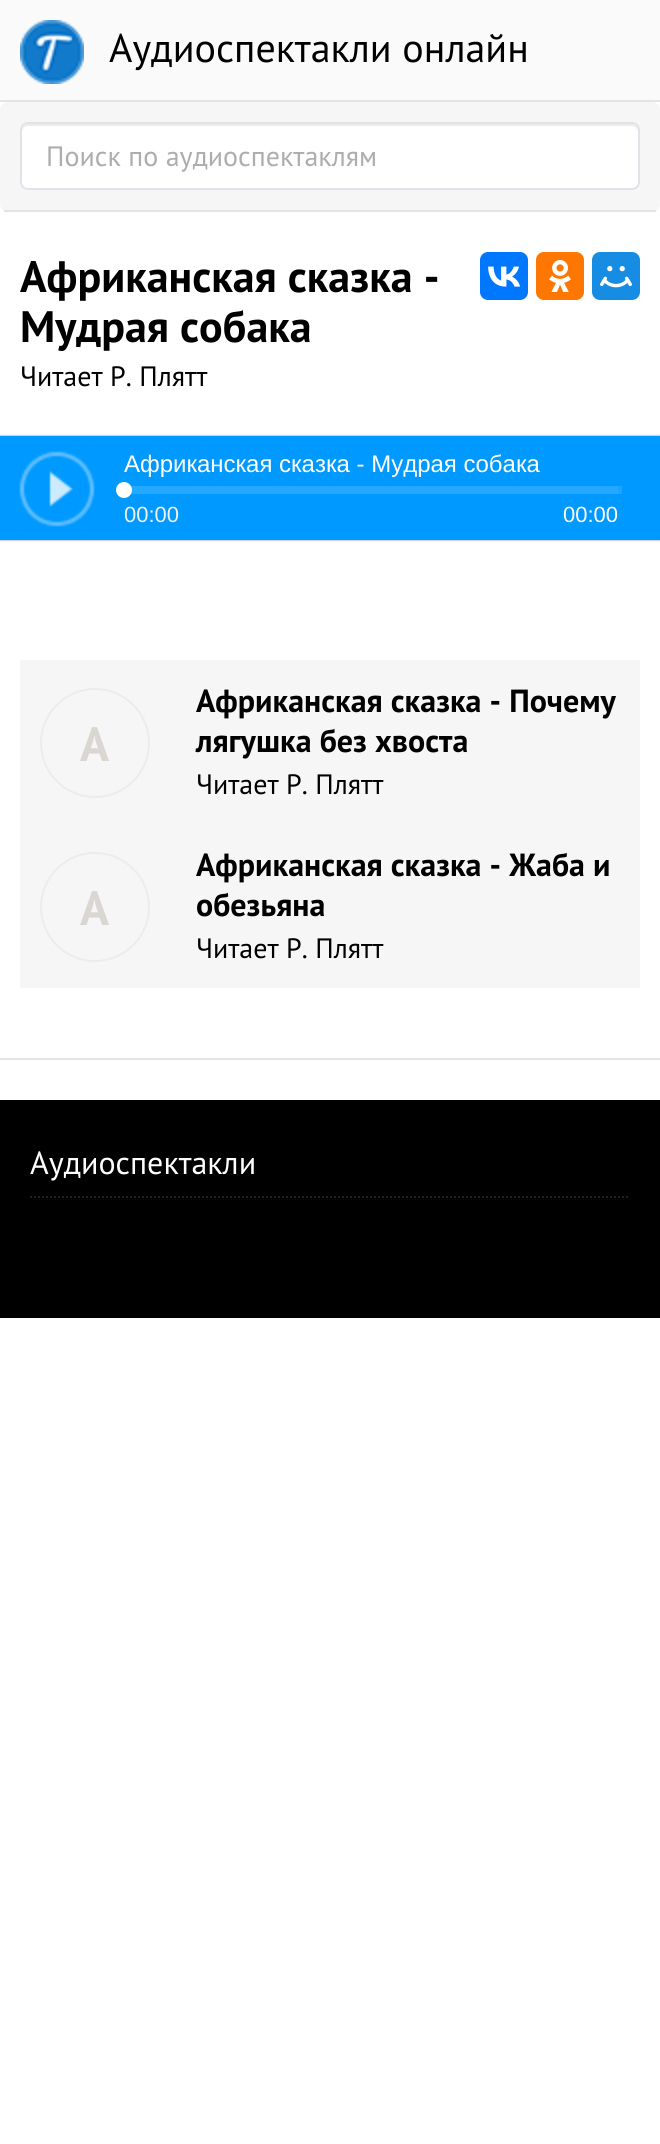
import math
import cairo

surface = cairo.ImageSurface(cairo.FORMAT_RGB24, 660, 2144)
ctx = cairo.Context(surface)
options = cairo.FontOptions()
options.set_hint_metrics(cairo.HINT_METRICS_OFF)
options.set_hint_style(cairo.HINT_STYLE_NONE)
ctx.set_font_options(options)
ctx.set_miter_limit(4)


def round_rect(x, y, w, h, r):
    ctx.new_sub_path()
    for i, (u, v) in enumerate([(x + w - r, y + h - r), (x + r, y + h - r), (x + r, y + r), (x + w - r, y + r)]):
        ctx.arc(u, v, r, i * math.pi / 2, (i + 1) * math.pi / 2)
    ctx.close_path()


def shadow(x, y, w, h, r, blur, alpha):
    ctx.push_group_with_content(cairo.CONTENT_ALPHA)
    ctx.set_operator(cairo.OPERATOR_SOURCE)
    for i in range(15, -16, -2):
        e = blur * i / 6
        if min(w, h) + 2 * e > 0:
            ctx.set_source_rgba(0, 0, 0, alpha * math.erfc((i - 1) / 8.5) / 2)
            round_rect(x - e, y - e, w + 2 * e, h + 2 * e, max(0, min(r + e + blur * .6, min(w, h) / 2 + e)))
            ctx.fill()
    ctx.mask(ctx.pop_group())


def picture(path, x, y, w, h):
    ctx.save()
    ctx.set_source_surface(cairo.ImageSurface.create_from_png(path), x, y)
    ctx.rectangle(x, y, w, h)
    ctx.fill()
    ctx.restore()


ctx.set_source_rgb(1, 1, 1)
ctx.paint()
ctx.set_source_rgb(0.98, 0.98, 0.98)
ctx.rectangle(0, 0, 660, 100)
ctx.fill()
ctx.set_source_rgb(0.894, 0.894, 0.894)
ctx.rectangle(0, 100, 660, 2)
ctx.fill()
picture("img1.png", 20, 20, 64, 64)
ctx.select_font_face("PT Sans")
ctx.set_font_size(40)
ctx.set_source_rgb(0, 0, 0)
ctx.move_to(109, 62)
ctx.show_text("Аудиоспектакли онлайн")
ctx.set_source_rgb(0.961, 0.961, 0.961)
round_rect(0, 102, 660, 110, 8)
ctx.fill()
ctx.set_source_rgb(0.894, 0.894, 0.894)
ctx.rectangle(4, 210, 652, 2)
ctx.fill()
ctx.set_source_rgb(1, 1, 1)
round_rect(20, 122, 620, 68, 8)
ctx.fill()
ctx.set_source_rgb(0.925, 0.925, 0.925)
ctx.new_path()
ctx.move_to(28, 126)
ctx.line_to(632, 126)
ctx.curve_to(635, 126, 638, 129, 638, 132)
ctx.line_to(638, 130)
ctx.curve_to(638, 127, 635, 124, 632, 124)
ctx.line_to(28, 124)
ctx.curve_to(25, 124, 22, 127, 22, 130)
ctx.line_to(22, 132)
ctx.curve_to(22, 129, 25, 126, 28, 126)
ctx.close_path()
ctx.fill()
round_rect(21, 123, 618, 66, 7)
ctx.set_source_rgb(0.875, 0.89, 0.91)
ctx.stroke()
ctx.set_font_size(28)
ctx.set_source_rgb(0.678, 0.678, 0.678)
ctx.move_to(46, 166)
ctx.show_text("Поиск по аудиоспектаклям")
ctx.set_source_rgb(0.894, 0.894, 0.894)
ctx.rectangle(0, 1058, 660, 2)
ctx.fill()
ctx.select_font_face("PT Sans", cairo.FONT_SLANT_NORMAL, cairo.FONT_WEIGHT_BOLD)
ctx.set_font_size(44)
ctx.set_source_rgb(0, 0, 0)
ctx.move_to(20, 292)
ctx.show_text("Африканская сказка -")
ctx.move_to(20, 342)
ctx.show_text("Мудрая собака")
ctx.set_source_rgb(0, 0.467, 1)
round_rect(480, 252, 48, 48, 8)
ctx.fill()
picture("img2.png", 488, 266, 33, 21)
ctx.set_source_rgb(1, 0.467, 0)
round_rect(536, 252, 48, 48, 8)
ctx.fill()
picture("img3.png", 549, 260, 22, 32)
ctx.set_source_rgb(0.086, 0.553, 0.886)
round_rect(592, 252, 48, 48, 8)
ctx.fill()
picture("img4.png", 600, 266, 32, 22)
ctx.select_font_face("PT Sans")
ctx.set_font_size(28)
ctx.set_source_rgb(0, 0, 0)
ctx.move_to(20, 386)
ctx.show_text("Читает Р. Плятт")
ctx.set_source_rgb(0, 0, 0)
shadow(0, 436, 660, 104, 0, 1, 0.5)
ctx.set_source_rgb(0, 0.6, 1)
ctx.rectangle(0, 436, 660, 104)
ctx.fill()
ctx.set_source_rgb(0.102, 0.639, 1)
ctx.rectangle(618, 486, 4, 8)
ctx.fill()
picture("img5.png", 19, 451, 76, 76)
ctx.select_font_face("Liberation Sans")
ctx.set_font_size(24)
ctx.set_source_rgb(1, 1, 1)
ctx.move_to(124, 472)
ctx.show_text("Африканская сказка - Мудрая собака")
ctx.set_source_rgb(0.145, 0.659, 1)
ctx.rectangle(122, 486, 496, 8)
ctx.fill()
ctx.set_source_rgb(1, 1, 1)
ctx.arc(124, 490, 8, 0, 2 * math.pi)
ctx.fill()
ctx.set_font_size(22)
ctx.set_source_rgb(0.941, 0.941, 0.941)
ctx.move_to(124, 522)
ctx.show_text("00:00")
ctx.set_source_rgb(1, 1, 1)
ctx.move_to(563, 522)
ctx.show_text("00:00")
ctx.set_source_rgb(0.961, 0.961, 0.961)
ctx.rectangle(20, 660, 620, 328)
ctx.fill()
ctx.arc(95, 743, 54, 0, 2 * math.pi)
ctx.set_source_rgb(0.925, 0.925, 0.925)
ctx.stroke()
ctx.select_font_face("PT Sans", cairo.FONT_SLANT_NORMAL, cairo.FONT_WEIGHT_BOLD)
ctx.set_font_size(48)
ctx.set_source_rgb(0.855, 0.839, 0.824)
ctx.move_to(80, 761)
ctx.show_text("А")
ctx.set_font_size(32)
ctx.set_source_rgb(0, 0, 0)
ctx.move_to(196, 712)
ctx.show_text("Африканская сказка - Почему")
ctx.move_to(196, 752)
ctx.show_text("лягушка без хвоста")
ctx.select_font_face("PT Sans")
ctx.set_font_size(28)
ctx.move_to(196, 794)
ctx.show_text("Читает Р. Плятт")
ctx.new_path()
ctx.arc(95, 907, 54, 0, 2 * math.pi)
ctx.set_source_rgb(0.925, 0.925, 0.925)
ctx.stroke()
ctx.select_font_face("PT Sans", cairo.FONT_SLANT_NORMAL, cairo.FONT_WEIGHT_BOLD)
ctx.set_font_size(48)
ctx.set_source_rgb(0.855, 0.839, 0.824)
ctx.move_to(80, 925)
ctx.show_text("А")
ctx.set_font_size(32)
ctx.set_source_rgb(0, 0, 0)
ctx.move_to(196, 876)
ctx.show_text("Африканская сказка - Жаба и")
ctx.move_to(196, 916)
ctx.show_text("обезьяна")
ctx.select_font_face("PT Sans")
ctx.set_font_size(28)
ctx.move_to(196, 958)
ctx.show_text("Читает Р. Плятт")
ctx.rectangle(0, 1100, 660, 218)
ctx.fill()
ctx.new_path()
ctx.move_to(30, 1197)
ctx.line_to(630, 1197)
ctx.set_source_rgb(0.133, 0.133, 0.133)
ctx.set_dash([2, 2])
ctx.stroke()
ctx.set_font_size(32)
ctx.set_source_rgb(1, 1, 1)
ctx.move_to(30, 1174)
ctx.show_text("Аудиоспектакли")
surface.write_to_png("page.png")
